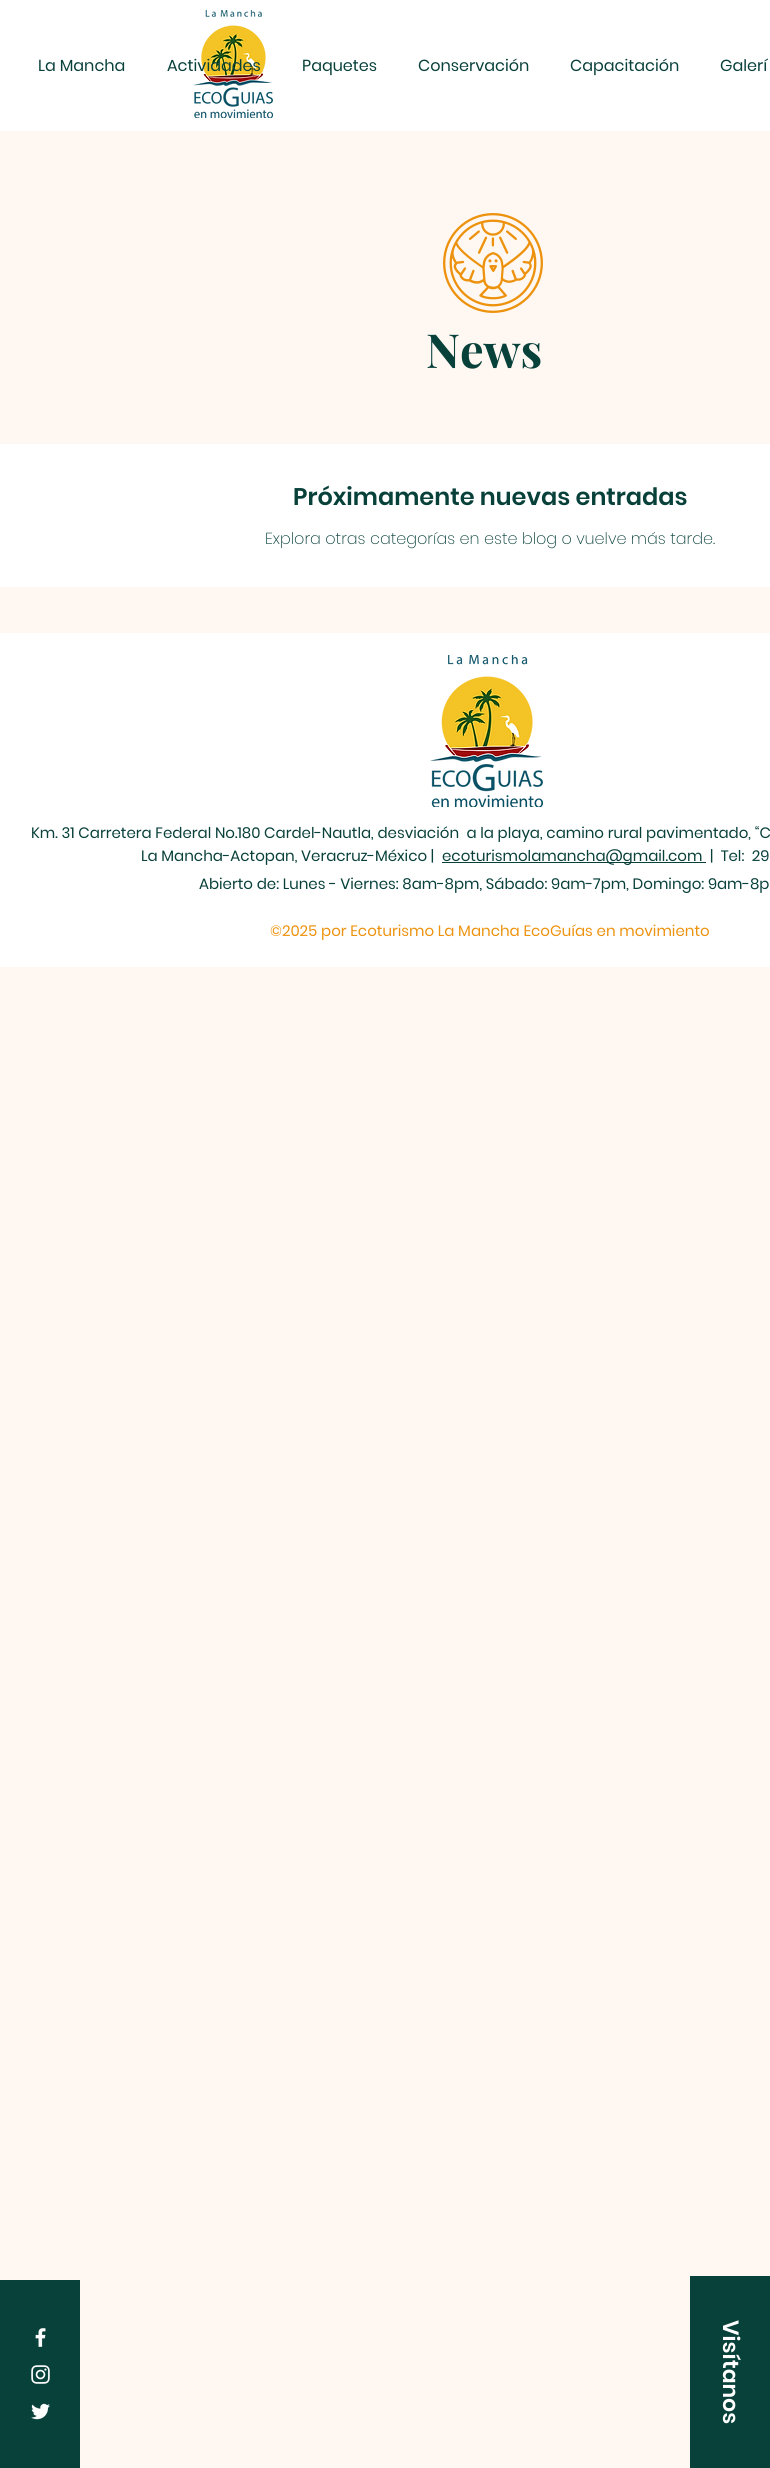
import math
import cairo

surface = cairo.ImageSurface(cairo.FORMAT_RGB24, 770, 2468)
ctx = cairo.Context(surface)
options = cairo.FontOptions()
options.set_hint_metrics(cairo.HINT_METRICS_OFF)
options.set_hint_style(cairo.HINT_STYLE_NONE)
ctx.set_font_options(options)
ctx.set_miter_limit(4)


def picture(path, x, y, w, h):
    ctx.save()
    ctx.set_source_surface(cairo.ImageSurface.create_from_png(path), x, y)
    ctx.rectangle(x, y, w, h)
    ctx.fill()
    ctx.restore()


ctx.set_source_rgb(1, 0.969, 0.949)
ctx.paint()
ctx.set_source_rgb(1, 1, 1)
ctx.rectangle(0, 0, 770, 131)
ctx.fill()
picture("img1.png", 193, 10, 80, 108)
ctx.select_font_face("Poppins")
ctx.set_font_size(16)
ctx.set_source_rgb(0.035, 0.251, 0.227)
ctx.move_to(38, 71)
ctx.show_text("La Mancha")
ctx.move_to(167, 71)
ctx.show_text("Actividades")
ctx.move_to(302, 71)
ctx.show_text("Paquetes")
ctx.move_to(418, 71)
ctx.show_text("Conservación")
ctx.move_to(570, 71)
ctx.show_text("Capacitación")
ctx.move_to(720, 71)
ctx.show_text("Galerí")
picture("img2.png", 443, 213, 100, 100)
ctx.select_font_face("Playfair Display", cairo.FONT_SLANT_NORMAL, cairo.FONT_WEIGHT_BOLD)
ctx.set_font_size(47)
ctx.move_to(426, 368)
ctx.show_text("News")
ctx.set_source_rgb(1, 1, 1)
ctx.rectangle(0, 444, 770, 143)
ctx.fill()
ctx.select_font_face("Poppins SemiBold")
ctx.set_font_size(24)
ctx.set_source_rgb(0.035, 0.251, 0.227)
ctx.move_to(293, 505)
ctx.show_text("Próximamente nuevas entradas")
ctx.select_font_face("Poppins ExtraLight")
ctx.set_font_size(16)
ctx.move_to(265, 544)
ctx.show_text("Explora otras categorías en este blog o vuelve más tarde.")
ctx.set_source_rgb(1, 1, 1)
ctx.rectangle(0, 633, 770, 334)
ctx.fill()
picture("img3.png", 430, 655, 113, 152)
ctx.select_font_face("Poppins")
ctx.set_font_size(15)
ctx.set_source_rgb(0.035, 0.251, 0.227)
ctx.move_to(31, 838)
ctx.show_text("Km. 31 Carretera Federal No.180 Cardel-Nautla, desviación  a la playa, camino rural pavimentado, “C")
ctx.move_to(141, 861)
ctx.show_text("La Mancha-Actopan, Veracruz-México |")
ctx.rectangle(442, 862, 264, 1)
ctx.fill()
ctx.move_to(442, 861)
ctx.show_text("ecoturismolamancha@gmail.com")
ctx.move_to(710, 861)
ctx.show_text("|  Tel:  29")
ctx.move_to(199, 889)
ctx.show_text("Abierto de: Lunes - Viernes: 8am-8pm, Sábado: 9am-7pm, Domingo: 9am-8p")
ctx.set_source_rgb(0.929, 0.573, 0.055)
ctx.move_to(270, 936)
ctx.show_text("©2025 por Ecoturismo La Mancha EcoGuías en movimiento")
ctx.set_source_rgb(0.035, 0.251, 0.227)
ctx.rectangle(0, 2280, 80, 188)
ctx.fill()
picture("img4.png", 35, 2328, 11, 19)
picture("img5.png", 31, 2365, 19, 19)
picture("img6.png", 31, 2403, 19, 17)
ctx.rectangle(690, 2276, 80, 192)
ctx.fill()
ctx.select_font_face("Poppins SemiBold")
ctx.set_font_size(22)
ctx.set_source_rgb(1, 1, 1)
ctx.save()
ctx.translate(723, 2320)
ctx.rotate(90 * math.pi / 180)
ctx.move_to(0, 0)
ctx.show_text("Visítanos")
ctx.restore()
surface.write_to_png("page.png")
